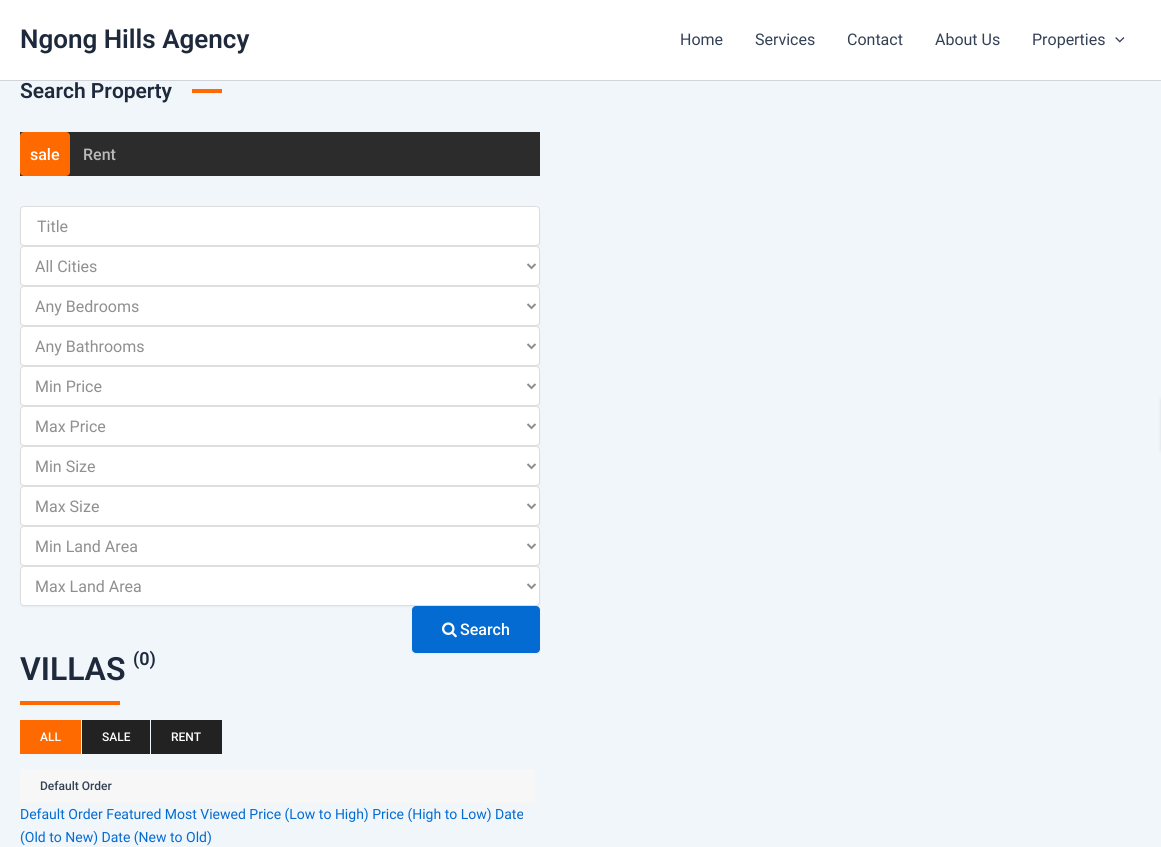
import math
import cairo

surface = cairo.ImageSurface(cairo.FORMAT_RGB24, 1161, 847)
ctx = cairo.Context(surface)
options = cairo.FontOptions()
options.set_hint_metrics(cairo.HINT_METRICS_OFF)
options.set_hint_style(cairo.HINT_STYLE_NONE)
ctx.set_font_options(options)
ctx.set_miter_limit(4)


def round_rect(x, y, w, h, r):
    ctx.new_sub_path()
    for i, (u, v) in enumerate([(x + w - r, y + h - r), (x + r, y + h - r), (x + r, y + r), (x + w - r, y + r)]):
        ctx.arc(u, v, r, i * math.pi / 2, (i + 1) * math.pi / 2)
    ctx.close_path()


def shadow(x, y, w, h, r, blur, alpha):
    ctx.push_group_with_content(cairo.CONTENT_ALPHA)
    ctx.set_operator(cairo.OPERATOR_SOURCE)
    for i in range(15, -16, -2):
        e = blur * i / 6
        if min(w, h) + 2 * e > 0:
            ctx.set_source_rgba(0, 0, 0, alpha * math.erfc((i - 1) / 8.5) / 2)
            round_rect(x - e, y - e, w + 2 * e, h + 2 * e, max(0, min(r + e + blur * .6, min(w, h) / 2 + e)))
            ctx.fill()
    ctx.mask(ctx.pop_group())


def picture(path, x, y, w, h):
    ctx.save()
    ctx.set_source_surface(cairo.ImageSurface.create_from_png(path), x, y)
    ctx.rectangle(x, y, w, h)
    ctx.fill()
    ctx.restore()


ctx.set_source_rgb(0.941, 0.961, 0.98)
ctx.paint()
ctx.set_source_rgb(1, 1, 1)
ctx.rectangle(0, 0, 1161, 80)
ctx.fill()
ctx.set_source_rgb(0.82, 0.835, 0.859)
ctx.rectangle(0, 80, 1161, 1)
ctx.fill()
ctx.select_font_face("Roboto SemiBold")
ctx.set_font_size(26)
ctx.set_source_rgb(0.118, 0.161, 0.231)
ctx.move_to(20, 48)
ctx.show_text("Ngong Hills Agency")
ctx.select_font_face("Roboto")
ctx.set_font_size(16)
ctx.set_source_rgb(0.2, 0.255, 0.333)
ctx.move_to(680, 45)
ctx.show_text("Home")
ctx.move_to(755, 45)
ctx.show_text("Services")
ctx.move_to(847, 45)
ctx.show_text("Contact")
ctx.move_to(935, 45)
ctx.show_text("About Us")
ctx.move_to(1032, 45)
ctx.show_text("Properties")
picture("img1.png", 1115, 37, 10, 6)
ctx.select_font_face("Roboto SemiBold")
ctx.set_font_size(21)
ctx.set_source_rgb(0.118, 0.161, 0.231)
ctx.move_to(20, 98)
ctx.show_text("Search Property")
ctx.set_source_rgb(0.996, 0.416, 0)
ctx.rectangle(192, 89, 30, 4)
ctx.fill()
ctx.set_source_rgb(0.173, 0.173, 0.173)
ctx.rectangle(20, 132, 520, 44)
ctx.fill()
ctx.set_source_rgb(0.996, 0.416, 0)
round_rect(20, 132, 50, 44, 4)
ctx.fill()
ctx.select_font_face("Roboto Medium")
ctx.set_font_size(16)
ctx.set_source_rgb(1, 1, 1)
ctx.move_to(30, 160)
ctx.show_text("sale")
ctx.set_source_rgb(0.729, 0.729, 0.729)
ctx.move_to(83, 160)
ctx.show_text("Rent")
ctx.set_source_rgb(0, 0, 0)
shadow(20, 207, 520, 40, 4, 1, 0.05)
ctx.set_source_rgb(1, 1, 1)
round_rect(20.5, 206.5, 519, 39, 3.5)
ctx.fill_preserve()
ctx.set_source_rgb(0.871, 0.871, 0.871)
ctx.set_line_width(1)
ctx.stroke()
ctx.select_font_face("Roboto")
ctx.set_source_rgb(0.561, 0.561, 0.561)
ctx.move_to(37, 232)
ctx.show_text("Title")
ctx.set_source_rgb(0, 0, 0)
shadow(20, 247, 520, 40, 4, 1, 0.05)
ctx.set_source_rgb(1, 1, 1)
round_rect(20.5, 246.5, 519, 39, 3.5)
ctx.fill_preserve()
ctx.set_source_rgb(0.871, 0.871, 0.871)
ctx.stroke()
ctx.new_path()
ctx.move_to(527.5, 264)
ctx.line_to(531.5, 268)
ctx.line_to(535.5, 264)
ctx.set_source_rgb(0.561, 0.561, 0.561)
ctx.set_line_width(2)
ctx.stroke()
ctx.move_to(35, 272)
ctx.show_text("All Cities")
ctx.set_source_rgb(0, 0, 0)
shadow(20, 287, 520, 40, 4, 1, 0.05)
ctx.set_source_rgb(1, 1, 1)
round_rect(20.5, 286.5, 519, 39, 3.5)
ctx.fill_preserve()
ctx.set_source_rgb(0.871, 0.871, 0.871)
ctx.set_line_width(1)
ctx.stroke()
ctx.new_path()
ctx.move_to(527.5, 304)
ctx.line_to(531.5, 308)
ctx.line_to(535.5, 304)
ctx.set_source_rgb(0.561, 0.561, 0.561)
ctx.set_line_width(2)
ctx.stroke()
ctx.move_to(35, 312)
ctx.show_text("Any Bedrooms")
ctx.set_source_rgb(0, 0, 0)
shadow(20, 327, 520, 40, 4, 1, 0.05)
ctx.set_source_rgb(1, 1, 1)
round_rect(20.5, 326.5, 519, 39, 3.5)
ctx.fill_preserve()
ctx.set_source_rgb(0.871, 0.871, 0.871)
ctx.set_line_width(1)
ctx.stroke()
ctx.new_path()
ctx.move_to(527.5, 344)
ctx.line_to(531.5, 348)
ctx.line_to(535.5, 344)
ctx.set_source_rgb(0.561, 0.561, 0.561)
ctx.set_line_width(2)
ctx.stroke()
ctx.move_to(35, 352)
ctx.show_text("Any Bathrooms")
ctx.set_source_rgb(0, 0, 0)
shadow(20, 367, 520, 40, 4, 1, 0.05)
ctx.set_source_rgb(1, 1, 1)
round_rect(20.5, 366.5, 519, 39, 3.5)
ctx.fill_preserve()
ctx.set_source_rgb(0.871, 0.871, 0.871)
ctx.set_line_width(1)
ctx.stroke()
ctx.new_path()
ctx.move_to(527.5, 384)
ctx.line_to(531.5, 388)
ctx.line_to(535.5, 384)
ctx.set_source_rgb(0.561, 0.561, 0.561)
ctx.set_line_width(2)
ctx.stroke()
ctx.move_to(35, 392)
ctx.show_text("Min Price")
ctx.set_source_rgb(0, 0, 0)
shadow(20, 407, 520, 40, 4, 1, 0.05)
ctx.set_source_rgb(1, 1, 1)
round_rect(20.5, 406.5, 519, 39, 3.5)
ctx.fill_preserve()
ctx.set_source_rgb(0.871, 0.871, 0.871)
ctx.set_line_width(1)
ctx.stroke()
ctx.new_path()
ctx.move_to(527.5, 424)
ctx.line_to(531.5, 428)
ctx.line_to(535.5, 424)
ctx.set_source_rgb(0.561, 0.561, 0.561)
ctx.set_line_width(2)
ctx.stroke()
ctx.move_to(35, 432)
ctx.show_text("Max Price")
ctx.set_source_rgb(0, 0, 0)
shadow(20, 447, 520, 40, 4, 1, 0.05)
ctx.set_source_rgb(1, 1, 1)
round_rect(20.5, 446.5, 519, 39, 3.5)
ctx.fill_preserve()
ctx.set_source_rgb(0.871, 0.871, 0.871)
ctx.set_line_width(1)
ctx.stroke()
ctx.new_path()
ctx.move_to(527.5, 464)
ctx.line_to(531.5, 468)
ctx.line_to(535.5, 464)
ctx.set_source_rgb(0.561, 0.561, 0.561)
ctx.set_line_width(2)
ctx.stroke()
ctx.move_to(35, 472)
ctx.show_text("Min Size")
ctx.set_source_rgb(0, 0, 0)
shadow(20, 487, 520, 40, 4, 1, 0.05)
ctx.set_source_rgb(1, 1, 1)
round_rect(20.5, 486.5, 519, 39, 3.5)
ctx.fill_preserve()
ctx.set_source_rgb(0.871, 0.871, 0.871)
ctx.set_line_width(1)
ctx.stroke()
ctx.new_path()
ctx.move_to(527.5, 504)
ctx.line_to(531.5, 508)
ctx.line_to(535.5, 504)
ctx.set_source_rgb(0.561, 0.561, 0.561)
ctx.set_line_width(2)
ctx.stroke()
ctx.move_to(35, 512)
ctx.show_text("Max Size")
ctx.set_source_rgb(0, 0, 0)
shadow(20, 527, 520, 40, 4, 1, 0.05)
ctx.set_source_rgb(1, 1, 1)
round_rect(20.5, 526.5, 519, 39, 3.5)
ctx.fill_preserve()
ctx.set_source_rgb(0.871, 0.871, 0.871)
ctx.set_line_width(1)
ctx.stroke()
ctx.new_path()
ctx.move_to(527.5, 544)
ctx.line_to(531.5, 548)
ctx.line_to(535.5, 544)
ctx.set_source_rgb(0.561, 0.561, 0.561)
ctx.set_line_width(2)
ctx.stroke()
ctx.move_to(35, 552)
ctx.show_text("Min Land Area")
ctx.set_source_rgb(0, 0, 0)
shadow(20, 567, 520, 40, 4, 1, 0.05)
ctx.set_source_rgb(1, 1, 1)
round_rect(20.5, 566.5, 519, 39, 3.5)
ctx.fill_preserve()
ctx.set_source_rgb(0.871, 0.871, 0.871)
ctx.set_line_width(1)
ctx.stroke()
ctx.new_path()
ctx.move_to(527.5, 584)
ctx.line_to(531.5, 588)
ctx.line_to(535.5, 584)
ctx.set_source_rgb(0.561, 0.561, 0.561)
ctx.set_line_width(2)
ctx.stroke()
ctx.move_to(35, 592)
ctx.show_text("Max Land Area")
ctx.set_source_rgb(0, 0, 0)
shadow(412, 607, 128, 47, 4, 1, 0.05)
ctx.set_source_rgb(0.016, 0.42, 0.824)
round_rect(412, 606, 128, 47, 4)
ctx.fill()
picture("img2.png", 442, 622, 15, 16)
ctx.select_font_face("Roboto Medium")
ctx.set_source_rgb(1, 1, 1)
ctx.move_to(460, 635)
ctx.show_text("Search")
ctx.select_font_face("Roboto SemiBold")
ctx.set_font_size(32)
ctx.set_source_rgb(0.118, 0.161, 0.231)
ctx.move_to(20, 680)
ctx.show_text("VILLAS")
ctx.set_font_size(18)
ctx.move_to(133, 665)
ctx.show_text("(0)")
ctx.set_source_rgb(0.996, 0.416, 0)
ctx.rectangle(20, 701, 100, 4)
ctx.fill()
ctx.rectangle(20, 720, 61, 34)
ctx.fill()
ctx.select_font_face("Roboto Medium")
ctx.set_font_size(12)
ctx.set_source_rgb(1, 1, 1)
ctx.move_to(40, 741)
ctx.show_text("ALL")
ctx.set_source_rgb(0.133, 0.133, 0.133)
ctx.rectangle(82, 720, 68, 34)
ctx.fill()
ctx.set_source_rgb(1, 1, 1)
ctx.move_to(102, 741)
ctx.show_text("SALE")
ctx.set_source_rgb(0.133, 0.133, 0.133)
ctx.rectangle(151, 720, 71, 34)
ctx.fill()
ctx.set_source_rgb(1, 1, 1)
ctx.move_to(171, 741)
ctx.show_text("RENT")
ctx.set_source_rgb(0.965, 0.965, 0.965)
ctx.rectangle(20, 769, 515, 34)
ctx.fill()
ctx.set_source_rgb(0.2, 0.255, 0.333)
ctx.move_to(40, 790)
ctx.show_text("Default Order")
ctx.select_font_face("Roboto")
ctx.set_font_size(14)
ctx.set_source_rgb(0.016, 0.42, 0.824)
ctx.move_to(20, 819)
ctx.show_text("Default Order Featured Most Viewed Price (Low to High) Price (High to Low) Date")
ctx.move_to(20, 842)
ctx.show_text("(Old to New) Date (New to Old)")
ctx.set_source_rgb(0.467, 0.467, 0.467)
shadow(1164, 400, 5, 50, 0, 2.5, 1)
surface.write_to_png("page.png")
